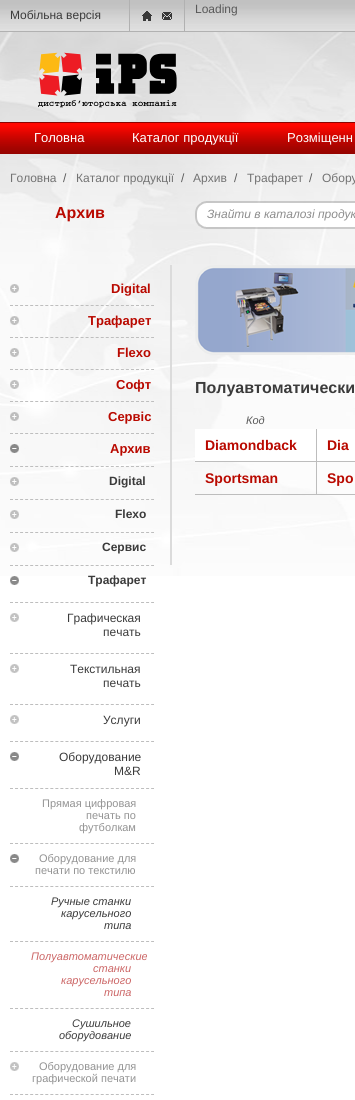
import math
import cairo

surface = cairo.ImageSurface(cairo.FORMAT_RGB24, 355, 1100)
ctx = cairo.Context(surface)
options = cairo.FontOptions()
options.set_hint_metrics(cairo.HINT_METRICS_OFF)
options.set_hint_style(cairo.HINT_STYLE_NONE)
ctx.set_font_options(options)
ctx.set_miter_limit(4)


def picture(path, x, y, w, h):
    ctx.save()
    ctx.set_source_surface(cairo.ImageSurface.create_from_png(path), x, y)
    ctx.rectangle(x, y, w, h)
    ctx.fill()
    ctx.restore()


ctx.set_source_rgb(1, 1, 1)
ctx.paint()
picture("img1.png", 0, 32, 355, 544)
picture("img2.png", 0, 0, 355, 31)
ctx.set_source_rgb(0.694, 0.694, 0.694)
ctx.rectangle(0, 31, 355, 1)
ctx.fill()
ctx.rectangle(129, 0, 1, 31)
ctx.fill()
ctx.select_font_face("Liberation Sans")
ctx.set_font_size(12)
ctx.set_source_rgb(0.231, 0.231, 0.231)
ctx.move_to(10, 19)
ctx.show_text("Мобільна версія")
ctx.set_source_rgb(0.694, 0.694, 0.694)
ctx.rectangle(184, 0, 1, 31)
ctx.fill()
picture("img3.png", 142, 11, 10, 10)
picture("img4.png", 162, 12, 10, 8)
ctx.set_source_rgb(0.349, 0.349, 0.349)
ctx.move_to(195, 13)
ctx.show_text("Loading")
picture("img5.png", 38, 52, 139, 56)
picture("img6.png", 0, 122, 355, 32)
ctx.set_font_size(13)
ctx.set_source_rgb(1, 1, 1)
ctx.move_to(34, 142)
ctx.show_text("Головна")
ctx.move_to(132, 142)
ctx.show_text("Каталог продукції")
ctx.move_to(287, 142)
ctx.show_text("Розміщенн")
ctx.set_font_size(12)
ctx.set_source_rgb(0.451, 0.451, 0.451)
ctx.move_to(10, 182)
ctx.show_text("Головна")
ctx.set_source_rgb(0.349, 0.349, 0.349)
ctx.move_to(63, 182)
ctx.show_text("/")
ctx.set_source_rgb(0.451, 0.451, 0.451)
ctx.move_to(76, 182)
ctx.show_text("Каталог продукції")
ctx.set_source_rgb(0.349, 0.349, 0.349)
ctx.move_to(181, 182)
ctx.show_text("/")
ctx.set_source_rgb(0.451, 0.451, 0.451)
ctx.move_to(193, 182)
ctx.show_text("Архив")
ctx.set_source_rgb(0.349, 0.349, 0.349)
ctx.move_to(234, 182)
ctx.show_text("/")
ctx.set_source_rgb(0.451, 0.451, 0.451)
ctx.move_to(247, 182)
ctx.show_text("Трафарет")
ctx.set_source_rgb(0.349, 0.349, 0.349)
ctx.move_to(309, 182)
ctx.show_text("/")
ctx.set_source_rgb(0.451, 0.451, 0.451)
ctx.move_to(322, 182)
ctx.show_text("Обору")
ctx.select_font_face("Liberation Sans", cairo.FONT_SLANT_NORMAL, cairo.FONT_WEIGHT_BOLD)
ctx.set_font_size(16)
ctx.set_source_rgb(0.725, 0.039, 0)
ctx.move_to(55, 218)
ctx.show_text("Архив")
picture("img7.png", 195, 201, 160, 28)
ctx.select_font_face("Liberation Sans", cairo.FONT_SLANT_ITALIC)
ctx.set_font_size(12)
ctx.set_source_rgb(0.553, 0.553, 0.553)
ctx.move_to(207, 218)
ctx.show_text("Знайти в каталозі продук")
picture("img8.png", 10, 284, 9, 9)
ctx.select_font_face("Liberation Sans", cairo.FONT_SLANT_NORMAL, cairo.FONT_WEIGHT_BOLD)
ctx.set_font_size(13)
ctx.set_source_rgb(0.725, 0.039, 0)
ctx.move_to(111, 293)
ctx.show_text("Digital")
ctx.new_path()
ctx.move_to(10, 305.5)
ctx.line_to(154, 305.5)
ctx.set_source_rgb(0.745, 0.745, 0.745)
ctx.set_line_width(1)
ctx.set_dash([3, 2.04])
ctx.stroke()
picture("img9.png", 10, 316, 9, 9)
ctx.set_source_rgb(0.725, 0.039, 0)
ctx.move_to(88, 325)
ctx.show_text("Трафарет")
ctx.new_path()
ctx.move_to(10, 337.5)
ctx.line_to(154, 337.5)
ctx.set_source_rgb(0.745, 0.745, 0.745)
ctx.stroke()
picture("img10.png", 10, 348, 9, 9)
ctx.set_source_rgb(0.725, 0.039, 0)
ctx.move_to(117, 357)
ctx.show_text("Flexo")
ctx.new_path()
ctx.move_to(10, 369.5)
ctx.line_to(154, 369.5)
ctx.set_source_rgb(0.745, 0.745, 0.745)
ctx.stroke()
picture("img11.png", 10, 380, 9, 9)
ctx.set_source_rgb(0.725, 0.039, 0)
ctx.move_to(116, 389)
ctx.show_text("Софт")
ctx.new_path()
ctx.move_to(10, 401.5)
ctx.line_to(154, 401.5)
ctx.set_source_rgb(0.745, 0.745, 0.745)
ctx.stroke()
picture("img12.png", 10, 412, 9, 9)
ctx.set_source_rgb(0.725, 0.039, 0)
ctx.move_to(108, 421)
ctx.show_text("Сервіс")
ctx.new_path()
ctx.move_to(10, 433.5)
ctx.line_to(154, 433.5)
ctx.set_source_rgb(0.745, 0.745, 0.745)
ctx.stroke()
picture("img13.png", 10, 444, 9, 9)
ctx.set_source_rgb(0.725, 0.039, 0)
ctx.move_to(110, 453)
ctx.show_text("Архив")
ctx.new_path()
ctx.move_to(10, 466.5)
ctx.line_to(154, 466.5)
ctx.set_source_rgb(0.745, 0.745, 0.745)
ctx.stroke()
picture("img14.png", 10, 477, 9, 9)
ctx.set_font_size(12)
ctx.set_source_rgb(0.231, 0.231, 0.231)
ctx.move_to(109, 485)
ctx.show_text("Digital")
ctx.new_path()
ctx.move_to(10, 499.5)
ctx.line_to(154, 499.5)
ctx.set_source_rgb(0.745, 0.745, 0.745)
ctx.stroke()
picture("img8.png", 10, 510, 9, 9)
ctx.set_source_rgb(0.231, 0.231, 0.231)
ctx.move_to(115, 518)
ctx.show_text("Flexo")
ctx.new_path()
ctx.move_to(10, 532.5)
ctx.line_to(154, 532.5)
ctx.set_source_rgb(0.745, 0.745, 0.745)
ctx.stroke()
picture("img15.png", 10, 543, 9, 9)
ctx.set_source_rgb(0.231, 0.231, 0.231)
ctx.move_to(102, 551)
ctx.show_text("Сервис")
ctx.new_path()
ctx.move_to(10, 565.5)
ctx.line_to(154, 565.5)
ctx.set_source_rgb(0.745, 0.745, 0.745)
ctx.stroke()
picture("img16.png", 10, 576, 9, 9)
ctx.set_source_rgb(0.231, 0.231, 0.231)
ctx.move_to(88, 584)
ctx.show_text("Трафарет")
ctx.new_path()
ctx.move_to(10, 602.5)
ctx.line_to(154, 602.5)
ctx.set_source_rgb(0.745, 0.745, 0.745)
ctx.stroke()
picture("img17.png", 10, 613, 9, 9)
ctx.select_font_face("Liberation Sans")
ctx.set_source_rgb(0.231, 0.231, 0.231)
ctx.move_to(67, 622)
ctx.show_text("Графическая")
ctx.move_to(103, 636)
ctx.show_text("печать")
ctx.new_path()
ctx.move_to(10, 653.5)
ctx.line_to(154, 653.5)
ctx.set_source_rgb(0.745, 0.745, 0.745)
ctx.stroke()
picture("img17.png", 10, 664, 9, 9)
ctx.set_source_rgb(0.231, 0.231, 0.231)
ctx.move_to(70, 673)
ctx.show_text("Текстильная")
ctx.move_to(103, 687)
ctx.show_text("печать")
ctx.new_path()
ctx.move_to(10, 704.5)
ctx.line_to(154, 704.5)
ctx.set_source_rgb(0.745, 0.745, 0.745)
ctx.stroke()
picture("img17.png", 10, 715, 9, 9)
ctx.set_source_rgb(0.231, 0.231, 0.231)
ctx.move_to(103, 724)
ctx.show_text("Услуги")
ctx.new_path()
ctx.move_to(10, 741.5)
ctx.line_to(154, 741.5)
ctx.set_source_rgb(0.745, 0.745, 0.745)
ctx.stroke()
picture("img16.png", 10, 752, 9, 9)
ctx.set_source_rgb(0.231, 0.231, 0.231)
ctx.move_to(59, 761)
ctx.show_text("Оборудование")
ctx.move_to(114, 775)
ctx.show_text("M&R")
ctx.new_path()
ctx.move_to(10, 788.5)
ctx.line_to(154, 788.5)
ctx.set_source_rgb(0.745, 0.745, 0.745)
ctx.stroke()
ctx.set_font_size(11)
ctx.set_source_rgb(0.576, 0.576, 0.576)
ctx.move_to(42, 807)
ctx.show_text("Прямая цифровая")
ctx.move_to(86, 819)
ctx.show_text("печать по")
ctx.move_to(79, 831)
ctx.show_text("футболкам")
ctx.new_path()
ctx.move_to(10, 843.5)
ctx.line_to(154, 843.5)
ctx.set_source_rgb(0.745, 0.745, 0.745)
ctx.stroke()
picture("img16.png", 10, 854, 9, 9)
ctx.set_source_rgb(0.576, 0.576, 0.576)
ctx.move_to(39, 862)
ctx.show_text("Оборудование для")
ctx.move_to(35, 874)
ctx.show_text("печати по текстилю")
ctx.new_path()
ctx.move_to(10, 886.5)
ctx.line_to(154, 886.5)
ctx.set_source_rgb(0.745, 0.745, 0.745)
ctx.stroke()
ctx.select_font_face("Liberation Sans", cairo.FONT_SLANT_ITALIC)
ctx.set_source_rgb(0.231, 0.231, 0.231)
ctx.move_to(51, 905)
ctx.show_text("Ручные станки")
ctx.move_to(61, 917)
ctx.show_text("карусельного")
ctx.move_to(104, 929)
ctx.show_text("типа")
ctx.new_path()
ctx.move_to(10, 941.5)
ctx.line_to(154, 941.5)
ctx.set_source_rgb(0.745, 0.745, 0.745)
ctx.stroke()
ctx.set_source_rgb(0.8, 0.4, 0.4)
ctx.move_to(31, 960)
ctx.show_text("Полуавтоматические")
ctx.move_to(93, 972)
ctx.show_text("станки")
ctx.move_to(61, 984)
ctx.show_text("карусельного")
ctx.move_to(104, 996)
ctx.show_text("типа")
ctx.new_path()
ctx.move_to(10, 1008.5)
ctx.line_to(154, 1008.5)
ctx.set_source_rgb(0.745, 0.745, 0.745)
ctx.stroke()
ctx.set_source_rgb(0.231, 0.231, 0.231)
ctx.move_to(72, 1027)
ctx.show_text("Сушильное")
ctx.move_to(59, 1039)
ctx.show_text("оборудование")
ctx.new_path()
ctx.move_to(10, 1051.5)
ctx.line_to(154, 1051.5)
ctx.set_source_rgb(0.745, 0.745, 0.745)
ctx.stroke()
picture("img17.png", 10, 1062, 9, 9)
ctx.select_font_face("Liberation Sans")
ctx.set_source_rgb(0.576, 0.576, 0.576)
ctx.move_to(39, 1070)
ctx.show_text("Оборудование для")
ctx.move_to(32, 1082)
ctx.show_text("графической печати")
ctx.new_path()
ctx.move_to(10, 1094.5)
ctx.line_to(154, 1094.5)
ctx.set_source_rgb(0.745, 0.745, 0.745)
ctx.stroke()
ctx.set_source_rgb(0.859, 0.859, 0.859)
ctx.rectangle(170, 265, 2, 300)
ctx.fill()
picture("img18.png", 195, 265, 160, 90)
ctx.select_font_face("Liberation Sans", cairo.FONT_SLANT_NORMAL, cairo.FONT_WEIGHT_BOLD)
ctx.set_font_size(16)
ctx.set_source_rgb(0.231, 0.231, 0.231)
ctx.move_to(195, 393)
ctx.show_text("Полуавтоматически")
ctx.select_font_face("Liberation Sans", cairo.FONT_SLANT_ITALIC)
ctx.set_font_size(11)
ctx.set_source_rgb(0.349, 0.349, 0.349)
ctx.move_to(246, 424)
ctx.show_text("Код")
ctx.set_source_rgb(1, 1, 1)
ctx.rectangle(195, 429, 160, 32)
ctx.fill()
ctx.set_source_rgb(0.741, 0.741, 0.741)
ctx.rectangle(316, 494, 39, 1)
ctx.fill()
ctx.rectangle(316, 461, 1, 34)
ctx.fill()
ctx.rectangle(316, 461, 39, 1)
ctx.fill()
ctx.rectangle(316, 429, 1, 33)
ctx.fill()
ctx.rectangle(195, 461, 122, 1)
ctx.fill()
ctx.select_font_face("Liberation Sans", cairo.FONT_SLANT_NORMAL, cairo.FONT_WEIGHT_BOLD)
ctx.set_font_size(14)
ctx.set_source_rgb(0.725, 0.039, 0)
ctx.move_to(205, 450)
ctx.show_text("Diamondback")
ctx.move_to(327, 450)
ctx.show_text("Dia")
ctx.set_source_rgb(0.741, 0.741, 0.741)
ctx.rectangle(195, 494, 122, 1)
ctx.fill()
ctx.set_source_rgb(0.725, 0.039, 0)
ctx.move_to(205, 483)
ctx.show_text("Sportsman")
ctx.move_to(327, 483)
ctx.show_text("Spo")
surface.write_to_png("page.png")
